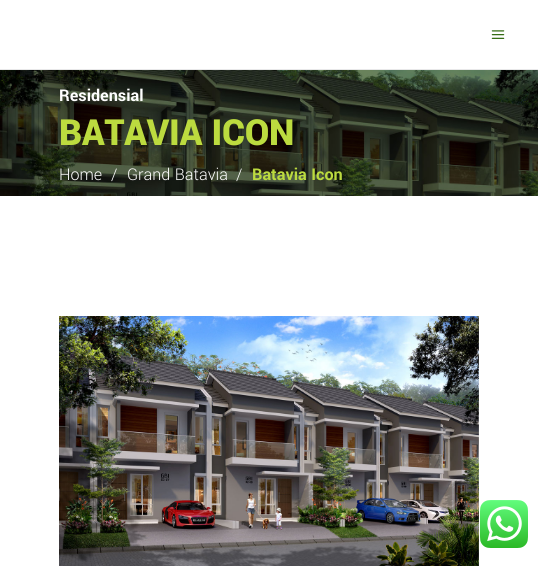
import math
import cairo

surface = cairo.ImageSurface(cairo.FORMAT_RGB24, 538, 566)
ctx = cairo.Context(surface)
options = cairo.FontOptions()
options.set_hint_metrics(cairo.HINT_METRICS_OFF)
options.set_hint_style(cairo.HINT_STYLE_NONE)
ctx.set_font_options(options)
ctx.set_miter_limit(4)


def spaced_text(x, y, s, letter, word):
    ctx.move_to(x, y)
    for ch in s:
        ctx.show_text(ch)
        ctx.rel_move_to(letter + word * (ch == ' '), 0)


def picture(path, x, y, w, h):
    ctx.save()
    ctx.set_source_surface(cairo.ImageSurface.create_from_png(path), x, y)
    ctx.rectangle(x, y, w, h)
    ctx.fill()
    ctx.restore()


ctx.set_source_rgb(1, 1, 1)
ctx.paint()
ctx.set_source_rgb(0.91, 0.91, 0.914)
ctx.rectangle(0, 69, 538, 1)
ctx.fill()
picture("img1.png", 491, 30, 14, 9)
picture("img2.png", 0, 70, 538, 126)
ctx.select_font_face("Yantramanav", cairo.FONT_SLANT_NORMAL, cairo.FONT_WEIGHT_BOLD)
ctx.set_font_size(18)
ctx.set_source_rgb(1, 1, 1)
ctx.move_to(59, 101)
ctx.show_text("Residensial")
ctx.select_font_face("Yantramanav Black")
ctx.set_font_size(40)
ctx.set_source_rgb(0.737, 0.859, 0.247)
spaced_text(59, 145, "BATAVIA ICON", -0.4, 0)
ctx.select_font_face("Yantramanav Light")
ctx.set_font_size(18)
ctx.set_source_rgb(1, 1, 1)
ctx.move_to(59, 180)
ctx.show_text("Home")
ctx.move_to(111, 180)
ctx.show_text("/")
ctx.move_to(127, 180)
ctx.show_text("Grand Batavia")
ctx.move_to(236, 180)
ctx.show_text("/")
ctx.select_font_face("Yantramanav", cairo.FONT_SLANT_NORMAL, cairo.FONT_WEIGHT_BOLD)
ctx.set_source_rgb(0.737, 0.859, 0.247)
ctx.move_to(252, 180)
ctx.show_text("Batavia Icon")
picture("img3.png", 59, 316, 420, 250)
picture("img4.png", 480, 500, 48, 48)
surface.write_to_png("page.png")
